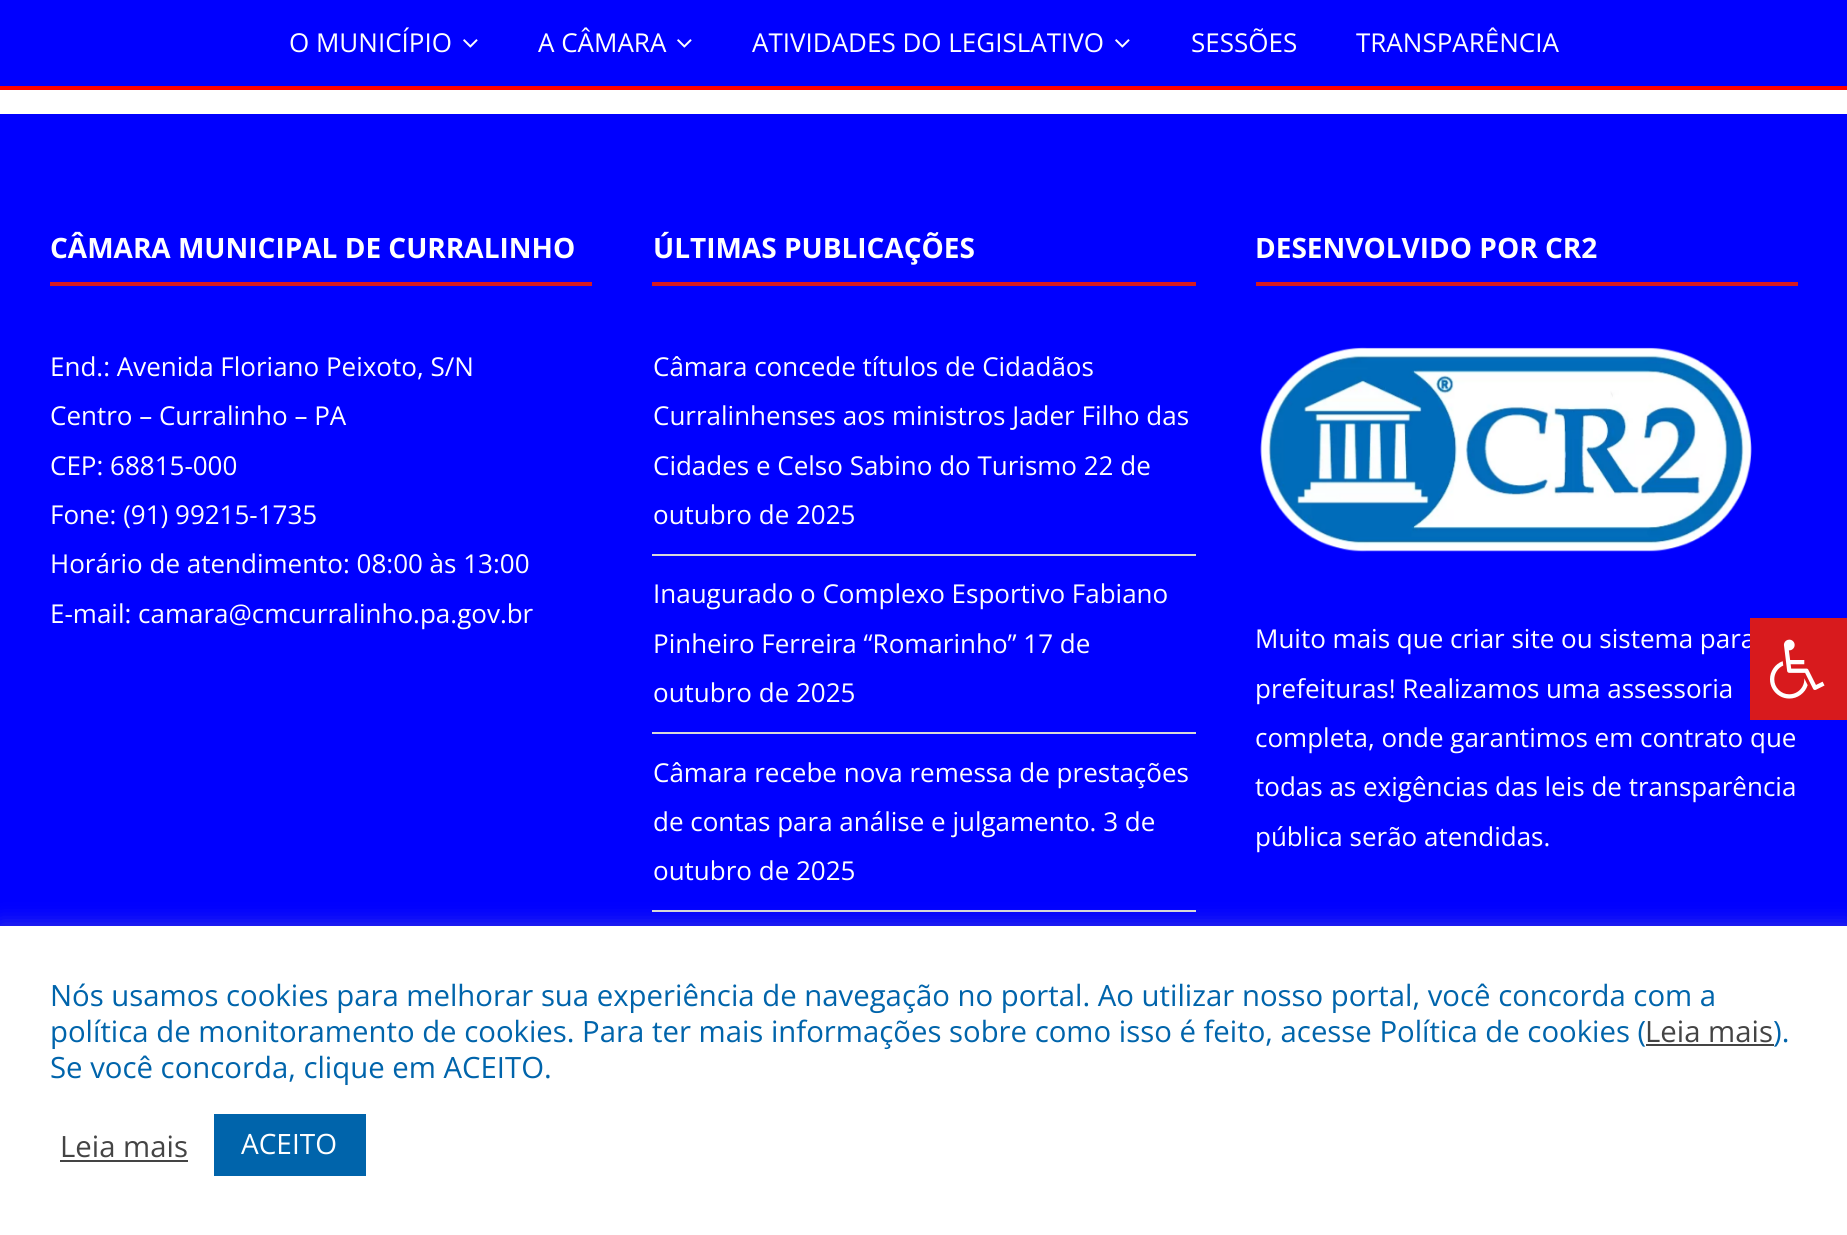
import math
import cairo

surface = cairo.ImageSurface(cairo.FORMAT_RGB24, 1847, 1235)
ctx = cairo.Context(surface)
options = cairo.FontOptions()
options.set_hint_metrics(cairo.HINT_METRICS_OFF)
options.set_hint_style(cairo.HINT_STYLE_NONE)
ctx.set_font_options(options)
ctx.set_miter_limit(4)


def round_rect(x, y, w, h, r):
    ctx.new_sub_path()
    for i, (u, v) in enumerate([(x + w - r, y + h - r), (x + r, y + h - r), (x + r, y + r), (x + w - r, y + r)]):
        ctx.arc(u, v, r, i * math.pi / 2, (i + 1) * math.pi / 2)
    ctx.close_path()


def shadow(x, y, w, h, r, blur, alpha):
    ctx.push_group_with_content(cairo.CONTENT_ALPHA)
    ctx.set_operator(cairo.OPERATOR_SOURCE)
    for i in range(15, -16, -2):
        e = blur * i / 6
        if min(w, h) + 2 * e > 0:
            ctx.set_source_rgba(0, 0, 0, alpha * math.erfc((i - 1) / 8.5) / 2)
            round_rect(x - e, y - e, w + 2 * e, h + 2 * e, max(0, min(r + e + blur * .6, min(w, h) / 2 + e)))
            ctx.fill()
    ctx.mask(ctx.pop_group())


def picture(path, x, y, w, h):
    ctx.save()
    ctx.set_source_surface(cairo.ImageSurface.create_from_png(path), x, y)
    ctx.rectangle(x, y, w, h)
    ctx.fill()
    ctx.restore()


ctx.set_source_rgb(1, 1, 1)
ctx.paint()
ctx.set_source_rgb(0, 0, 1)
ctx.rectangle(0, 0, 1847, 86)
ctx.fill()
ctx.set_source_rgb(1, 0, 0)
ctx.rectangle(0, 86, 1847, 4)
ctx.fill()
ctx.select_font_face("Open Sans")
ctx.set_font_size(26)
ctx.set_source_rgb(1, 1, 1)
ctx.move_to(289, 52)
ctx.show_text("O MUNICÍPIO")
picture("img1.png", 463, 39, 15, 9)
ctx.move_to(538, 52)
ctx.show_text("A CÂMARA")
picture("img1.png", 677, 39, 15, 9)
ctx.move_to(752, 52)
ctx.show_text("ATIVIDADES DO LEGISLATIVO")
picture("img1.png", 1115, 39, 15, 9)
ctx.move_to(1191, 52)
ctx.show_text("SESSÕES")
ctx.move_to(1356, 52)
ctx.show_text("TRANSPARÊNCIA")
ctx.set_source_rgb(0, 0, 1)
ctx.rectangle(0, 114, 1847, 812)
ctx.fill()
ctx.set_source_rgb(0.847, 0.102, 0.114)
ctx.rectangle(50, 282, 542, 4)
ctx.fill()
ctx.select_font_face("Open Sans", cairo.FONT_SLANT_NORMAL, cairo.FONT_WEIGHT_BOLD)
ctx.set_font_size(28)
ctx.set_source_rgb(1, 1, 1)
ctx.move_to(50, 258)
ctx.show_text("CÂMARA MUNICIPAL DE CURRALINHO")
ctx.select_font_face("Open Sans")
ctx.set_font_size(26)
ctx.move_to(50, 376)
ctx.show_text("End.: Avenida Floriano Peixoto, S/N")
ctx.move_to(50, 425)
ctx.show_text("Centro – Curralinho – PA")
ctx.move_to(50, 475)
ctx.show_text("CEP: 68815-000")
ctx.move_to(50, 524)
ctx.show_text("Fone: (91) 99215-1735")
ctx.move_to(50, 573)
ctx.show_text("Horário de atendimento: 08:00 às 13:00")
ctx.move_to(50, 623)
ctx.show_text("E-mail: camara@cmcurralinho.pa.gov.br")
ctx.set_source_rgb(0.847, 0.102, 0.114)
ctx.rectangle(652, 282, 544, 4)
ctx.fill()
ctx.select_font_face("Open Sans", cairo.FONT_SLANT_NORMAL, cairo.FONT_WEIGHT_BOLD)
ctx.set_font_size(28)
ctx.set_source_rgb(1, 1, 1)
ctx.move_to(653, 258)
ctx.show_text("ÚLTIMAS PUBLICAÇÕES")
ctx.set_source_rgb(0.851, 0.851, 0.851)
ctx.rectangle(652, 554, 544, 2)
ctx.fill()
ctx.select_font_face("Open Sans")
ctx.set_font_size(26)
ctx.set_source_rgb(1, 1, 1)
ctx.move_to(653, 376)
ctx.show_text("Câmara concede títulos de Cidadãos")
ctx.move_to(653, 425)
ctx.show_text("Curralinhenses aos ministros Jader Filho das")
ctx.move_to(653, 475)
ctx.show_text("Cidades e Celso Sabino do Turismo 22 de")
ctx.move_to(653, 524)
ctx.show_text("outubro de 2025")
ctx.set_source_rgb(0.851, 0.851, 0.851)
ctx.rectangle(652, 732, 544, 2)
ctx.fill()
ctx.set_source_rgb(1, 1, 1)
ctx.move_to(653, 603)
ctx.show_text("Inaugurado o Complexo Esportivo Fabiano")
ctx.move_to(653, 653)
ctx.show_text("Pinheiro Ferreira “Romarinho” 17 de")
ctx.move_to(653, 702)
ctx.show_text("outubro de 2025")
ctx.set_source_rgb(0.851, 0.851, 0.851)
ctx.rectangle(652, 910, 544, 2)
ctx.fill()
ctx.set_source_rgb(1, 1, 1)
ctx.move_to(653, 782)
ctx.show_text("Câmara recebe nova remessa de prestações")
ctx.move_to(653, 831)
ctx.show_text("de contas para análise e julgamento. 3 de")
ctx.move_to(653, 880)
ctx.show_text("outubro de 2025")
ctx.set_source_rgb(0.847, 0.102, 0.114)
ctx.rectangle(1256, 282, 542, 4)
ctx.fill()
ctx.select_font_face("Open Sans", cairo.FONT_SLANT_NORMAL, cairo.FONT_WEIGHT_BOLD)
ctx.set_font_size(28)
ctx.set_source_rgb(1, 1, 1)
ctx.move_to(1255, 258)
ctx.show_text("DESENVOLVIDO POR CR2")
picture("img2.png", 1260, 347, 492, 205)
ctx.select_font_face("Open Sans")
ctx.set_font_size(26)
ctx.move_to(1255, 648)
ctx.show_text("Muito mais que criar site ou sistema para")
ctx.move_to(1255, 698)
ctx.show_text("prefeituras! Realizamos uma assessoria")
ctx.move_to(1255, 747)
ctx.show_text("completa, onde garantimos em contrato que")
ctx.move_to(1255, 796)
ctx.show_text("todas as exigências das leis de transparência")
ctx.move_to(1255, 846)
ctx.show_text("pública serão atendidas.")
ctx.set_source_rgb(0.847, 0.102, 0.114)
ctx.rectangle(1750, 618, 97, 102)
ctx.fill()
picture("img3.png", 1770, 639, 55, 60)
ctx.set_source_rgb(0.675, 0.671, 0.671)
shadow(0, 924, 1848, 310, 0, 10, 0.3)
ctx.set_source_rgb(1, 1, 1)
ctx.rectangle(0, 926, 1847, 309)
ctx.fill()
ctx.set_font_size(29.33)
ctx.set_source_rgb(0, 0.392, 0.671)
ctx.move_to(50, 1006)
ctx.show_text("Nós usamos cookies para melhorar sua experiência de navegação no portal. Ao utilizar nosso portal, você concorda com a")
ctx.move_to(50, 1042)
ctx.show_text("política de monitoramento de cookies. Para ter mais informações sobre como isso é feito, acesse Política de cookies (")
ctx.set_source_rgb(0.267, 0.267, 0.267)
ctx.move_to(1645, 1042)
ctx.show_text("Leia mais")
ctx.rectangle(1646, 1044, 128, 2)
ctx.fill()
ctx.set_source_rgb(0, 0.392, 0.671)
ctx.move_to(1773, 1042)
ctx.show_text(").")
ctx.move_to(50, 1078)
ctx.show_text("Se você concorda, clique em ACEITO.")
ctx.set_source_rgb(0.267, 0.267, 0.267)
ctx.move_to(60, 1157)
ctx.show_text("Leia mais")
ctx.rectangle(60, 1160, 128, 2)
ctx.fill()
ctx.set_source_rgb(0, 0.392, 0.671)
ctx.rectangle(214, 1114, 152, 62)
ctx.fill()
ctx.set_font_size(28)
ctx.set_source_rgb(1, 1, 1)
ctx.move_to(241, 1154)
ctx.show_text("ACEITO")
surface.write_to_png("page.png")
